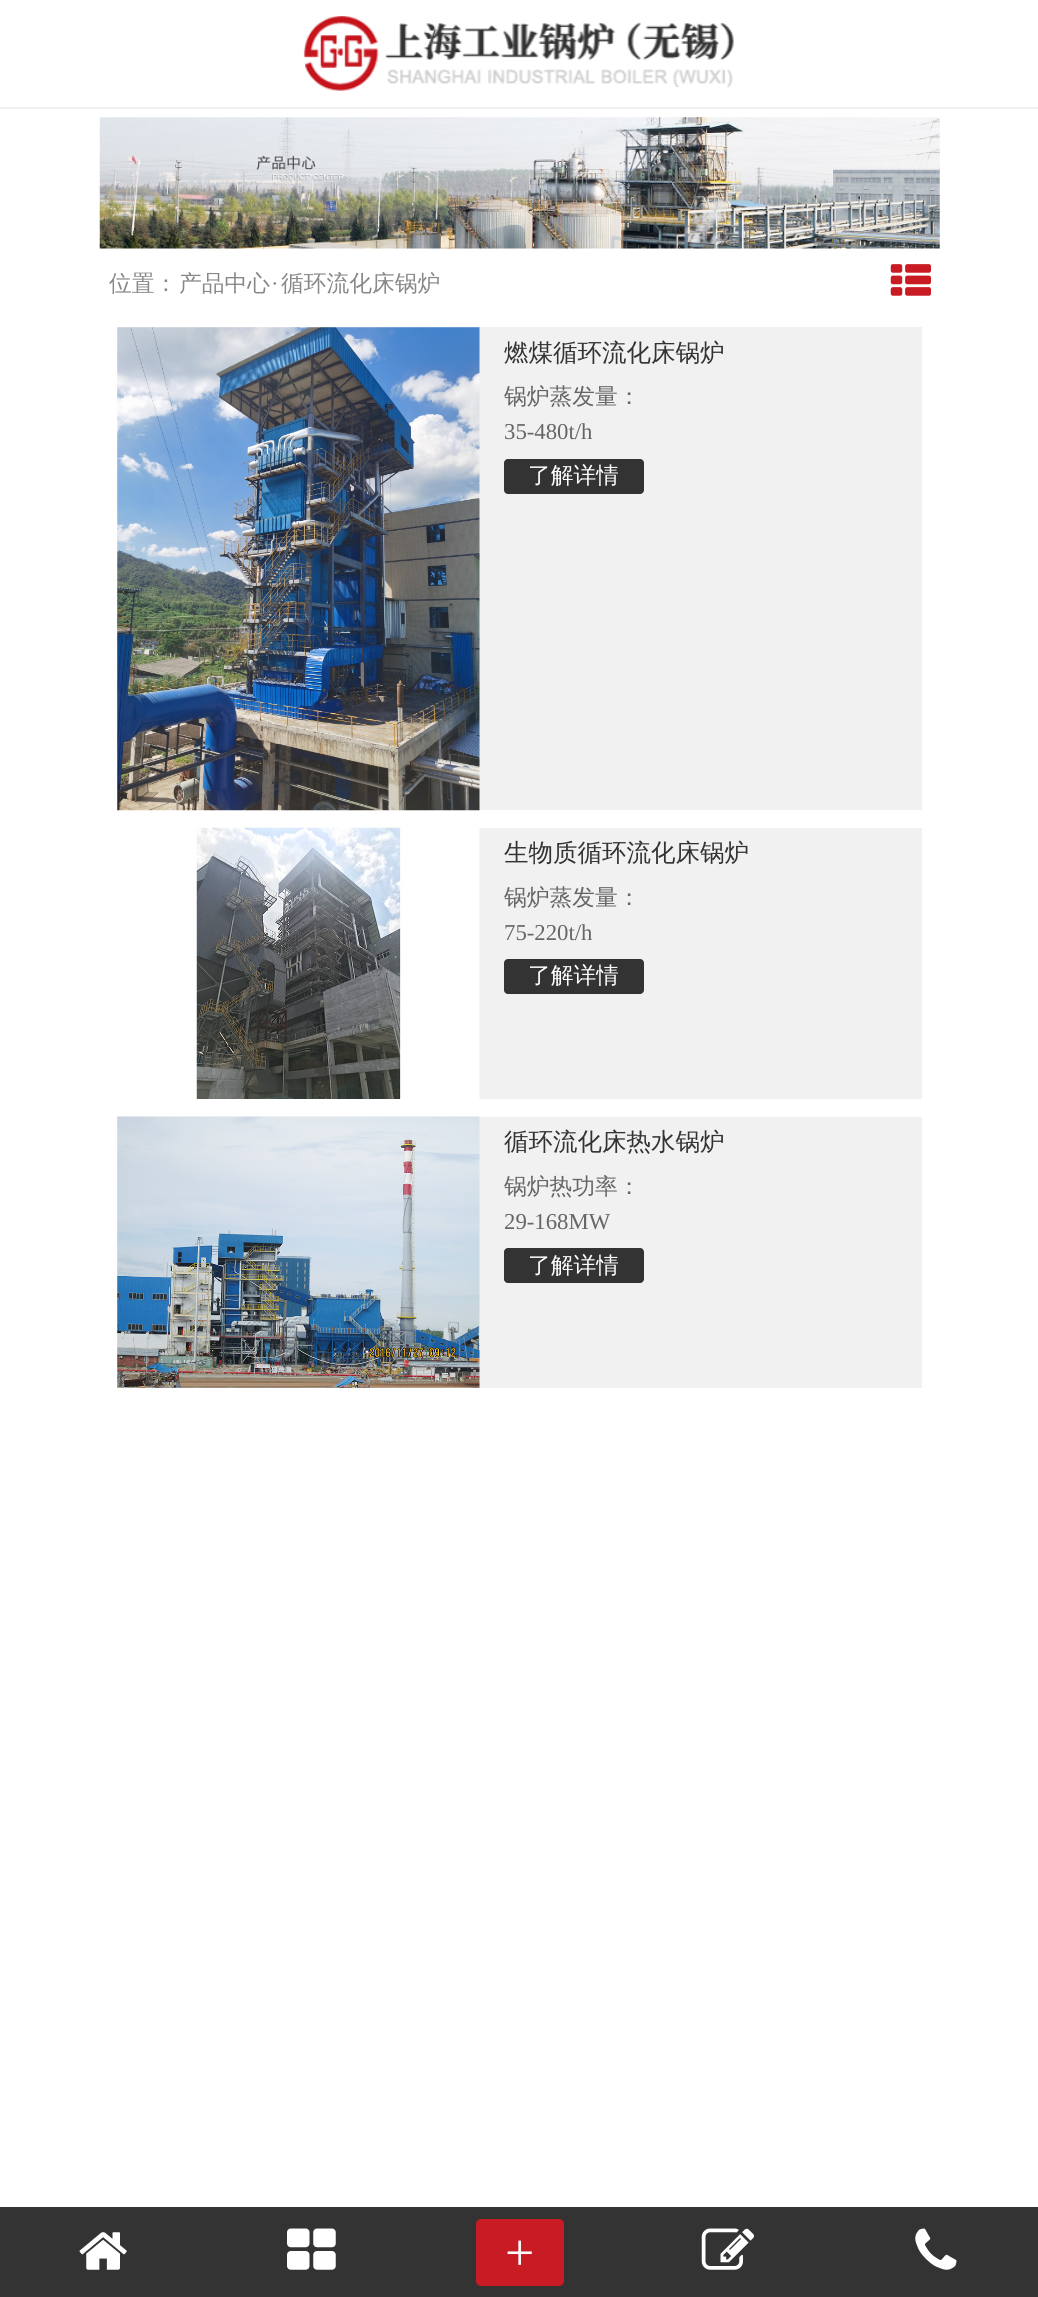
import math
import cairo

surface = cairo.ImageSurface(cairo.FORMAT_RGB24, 1038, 2297)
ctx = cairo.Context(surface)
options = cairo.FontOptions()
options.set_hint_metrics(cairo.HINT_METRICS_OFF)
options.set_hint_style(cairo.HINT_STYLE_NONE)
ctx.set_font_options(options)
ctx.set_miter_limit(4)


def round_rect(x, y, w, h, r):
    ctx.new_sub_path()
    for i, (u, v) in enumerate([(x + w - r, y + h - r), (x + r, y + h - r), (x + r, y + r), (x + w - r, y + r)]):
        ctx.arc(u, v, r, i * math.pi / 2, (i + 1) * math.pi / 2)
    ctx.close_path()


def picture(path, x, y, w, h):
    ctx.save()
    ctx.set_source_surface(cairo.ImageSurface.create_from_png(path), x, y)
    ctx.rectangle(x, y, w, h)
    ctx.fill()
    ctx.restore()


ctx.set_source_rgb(1, 1, 1)
ctx.paint()
ctx.set_source_rgb(0.945, 0.945, 0.945)
ctx.rectangle(0, 107, 1038, 2)
ctx.fill()
picture("img1.png", 303, 16, 431, 75)
picture("img2.png", 99, 117, 841, 132)
ctx.select_font_face("WenQuanYi Zen Hei Medium")
ctx.set_font_size(22.75)
ctx.set_source_rgb(0.533, 0.533, 0.533)
ctx.move_to(109, 291)
ctx.show_text("位置：")
ctx.move_to(179, 291)
ctx.show_text("产品中心")
ctx.select_font_face("Liberation Serif")
ctx.move_to(271, 291)
ctx.show_text("·")
ctx.select_font_face("WenQuanYi Zen Hei Medium")
ctx.move_to(281, 291)
ctx.show_text("循环流化床锅炉")
picture("img3.png", 890, 264, 41, 32)
ctx.set_source_rgb(0.945, 0.945, 0.945)
ctx.rectangle(117, 327, 805, 483)
ctx.fill()
picture("img4.png", 117, 327, 363, 484)
ctx.set_font_size(24.5)
ctx.set_source_rgb(0.2, 0.2, 0.2)
ctx.move_to(504, 361)
ctx.show_text("燃煤循环流化床锅炉")
ctx.set_font_size(22.75)
ctx.set_source_rgb(0.4, 0.4, 0.4)
ctx.move_to(504, 404)
ctx.show_text("锅炉蒸发量：")
ctx.select_font_face("Liberation Serif")
ctx.move_to(504, 439)
ctx.show_text("35-480t/h")
ctx.set_source_rgb(0.2, 0.2, 0.2)
round_rect(504, 459, 140, 35, 4)
ctx.fill()
ctx.select_font_face("WenQuanYi Zen Hei Medium")
ctx.set_source_rgb(1, 1, 1)
ctx.move_to(528, 483)
ctx.show_text("了解详情")
ctx.set_source_rgb(0.945, 0.945, 0.945)
ctx.rectangle(117, 828, 805, 271)
ctx.fill()
picture("img5.png", 117, 827, 363, 272)
ctx.set_font_size(24.5)
ctx.set_source_rgb(0.2, 0.2, 0.2)
ctx.move_to(504, 861)
ctx.show_text("生物质循环流化床锅炉")
ctx.set_font_size(22.75)
ctx.set_source_rgb(0.4, 0.4, 0.4)
ctx.move_to(504, 905)
ctx.show_text("锅炉蒸发量：")
ctx.select_font_face("Liberation Serif")
ctx.move_to(504, 940)
ctx.show_text("75-220t/h")
ctx.set_source_rgb(0.2, 0.2, 0.2)
round_rect(504, 959, 140, 35, 4)
ctx.fill()
ctx.select_font_face("WenQuanYi Zen Hei Medium")
ctx.set_source_rgb(1, 1, 1)
ctx.move_to(528, 983)
ctx.show_text("了解详情")
ctx.set_source_rgb(0.945, 0.945, 0.945)
ctx.rectangle(117, 1117, 805, 271)
ctx.fill()
picture("img6.png", 117, 1116, 363, 272)
ctx.set_font_size(24.5)
ctx.set_source_rgb(0.2, 0.2, 0.2)
ctx.move_to(504, 1150)
ctx.show_text("循环流化床热水锅炉")
ctx.set_font_size(22.75)
ctx.set_source_rgb(0.4, 0.4, 0.4)
ctx.move_to(504, 1194)
ctx.show_text("锅炉热功率：")
ctx.select_font_face("Liberation Serif")
ctx.move_to(504, 1229)
ctx.show_text("29-168MW")
ctx.set_source_rgb(0.2, 0.2, 0.2)
round_rect(504, 1248, 140, 35, 4)
ctx.fill()
ctx.select_font_face("WenQuanYi Zen Hei Medium")
ctx.set_source_rgb(1, 1, 1)
ctx.move_to(528, 1273)
ctx.show_text("了解详情")
ctx.set_source_rgb(0.2, 0.2, 0.2)
ctx.rectangle(0, 2207, 1038, 90)
ctx.fill()
picture("img7.png", 79, 2232, 48, 38)
picture("img8.png", 287, 2228, 49, 42)
ctx.set_source_rgb(0.784, 0.106, 0.137)
round_rect(476, 2219, 88, 67, 5)
ctx.fill()
ctx.select_font_face("Liberation Serif")
ctx.set_font_size(52)
ctx.set_source_rgb(1, 1, 1)
ctx.move_to(505, 2270)
ctx.show_text("+")
picture("img9.png", 701, 2228, 53, 42)
picture("img10.png", 915, 2228, 42, 42)
surface.write_to_png("page.png")
